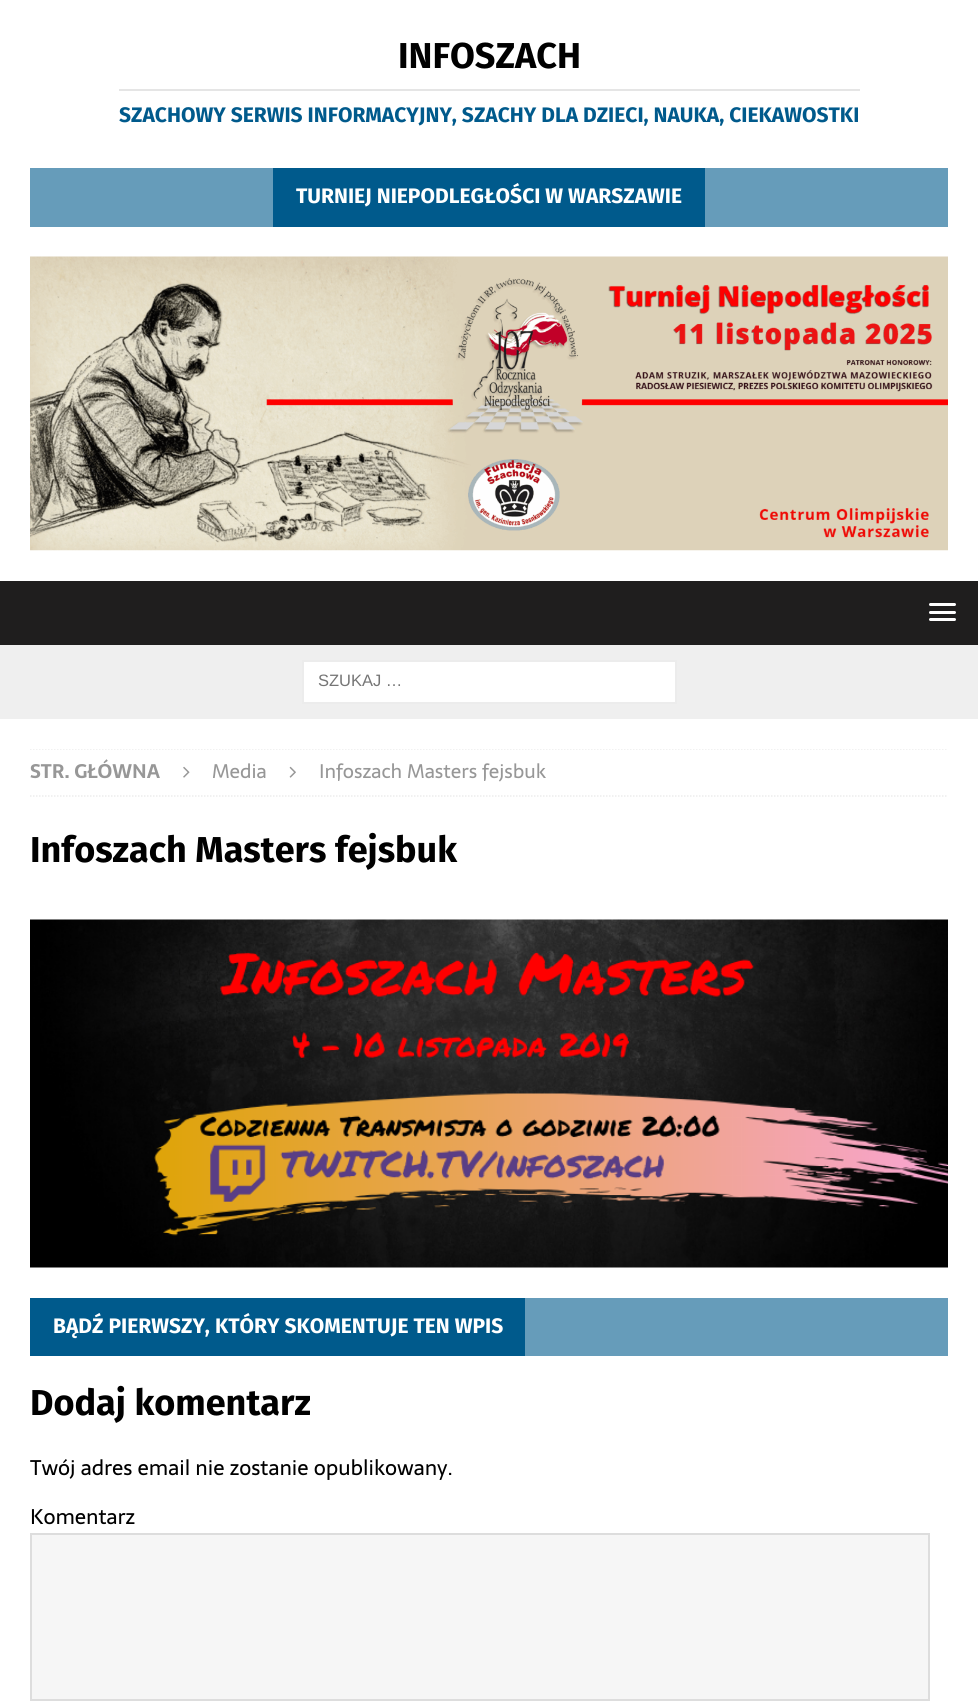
import math
import cairo

surface = cairo.ImageSurface(cairo.FORMAT_RGB24, 978, 1702)
ctx = cairo.Context(surface)
options = cairo.FontOptions()
options.set_hint_metrics(cairo.HINT_METRICS_OFF)
options.set_hint_style(cairo.HINT_STYLE_NONE)
ctx.set_font_options(options)
ctx.set_miter_limit(4)


def round_rect(x, y, w, h, r):
    ctx.new_sub_path()
    for i, (u, v) in enumerate([(x + w - r, y + h - r), (x + r, y + h - r), (x + r, y + r), (x + w - r, y + r)]):
        ctx.arc(u, v, r, i * math.pi / 2, (i + 1) * math.pi / 2)
    ctx.close_path()


def picture(path, x, y, w, h):
    ctx.save()
    ctx.set_source_surface(cairo.ImageSurface.create_from_png(path), x, y)
    ctx.rectangle(x, y, w, h)
    ctx.fill()
    ctx.restore()


ctx.set_source_rgb(1, 1, 1)
ctx.paint()
ctx.select_font_face("Fira Sans", cairo.FONT_SLANT_NORMAL, cairo.FONT_WEIGHT_BOLD)
ctx.set_font_size(36)
ctx.set_source_rgb(0, 0, 0)
ctx.move_to(398, 68)
ctx.show_text("INFOSZACH")
ctx.set_source_rgb(0.898, 0.898, 0.898)
ctx.rectangle(119, 89, 741, 2)
ctx.fill()
ctx.set_font_size(21)
ctx.set_source_rgb(0, 0.353, 0.549)
ctx.move_to(119, 122)
ctx.show_text("SZACHOWY SERWIS INFORMACYJNY, SZACHY DLA DZIECI, NAUKA, CIEKAWOSTKI")
ctx.set_source_rgb(0.4, 0.612, 0.729)
ctx.rectangle(30, 168, 918, 59)
ctx.fill()
ctx.set_source_rgb(0, 0.353, 0.549)
ctx.rectangle(273, 168, 432, 59)
ctx.fill()
ctx.set_source_rgb(1, 1, 1)
ctx.move_to(296, 203)
ctx.show_text("TURNIEJ NIEPODLEGŁOŚCI W WARSZAWIE")
picture("img1.png", 30, 256, 918, 295)
ctx.set_source_rgb(0.122, 0.118, 0.118)
ctx.rectangle(0, 581, 978, 64)
ctx.fill()
ctx.set_source_rgb(1, 1, 1)
round_rect(929, 603, 27, 3, 1.5)
ctx.fill()
round_rect(929, 611, 27, 3, 1.5)
ctx.fill()
round_rect(929, 618, 27, 3, 1.5)
ctx.fill()
ctx.set_source_rgb(0.937, 0.937, 0.937)
ctx.rectangle(0, 645, 978, 74)
ctx.fill()
ctx.set_source_rgb(1, 1, 1)
ctx.rectangle(303, 661, 373, 42)
ctx.fill_preserve()
ctx.set_source_rgb(0.922, 0.922, 0.922)
ctx.stroke()
ctx.select_font_face("Liberation Sans")
ctx.set_font_size(16.5)
ctx.set_source_rgb(0.459, 0.459, 0.459)
ctx.move_to(318, 686)
ctx.show_text("SZUKAJ …")
ctx.save()
ctx.rectangle(30, 749, 918, 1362)
ctx.clip()
ctx.new_path()
ctx.move_to(30, 749)
ctx.line_to(948, 749)
ctx.set_source_rgb(0.922, 0.922, 0.922)
ctx.set_line_width(1.5)
ctx.set_dash([1.5, 1.5])
ctx.stroke()
ctx.restore()
ctx.new_path()
ctx.move_to(30, 796)
ctx.line_to(948, 796)
ctx.set_source_rgb(0.922, 0.922, 0.922)
ctx.set_line_width(1.5)
ctx.set_dash([1.5, 1.5])
ctx.stroke()
ctx.select_font_face("Sarala", cairo.FONT_SLANT_NORMAL, cairo.FONT_WEIGHT_BOLD)
ctx.set_font_size(19.5)
ctx.set_source_rgb(0.592, 0.592, 0.592)
ctx.move_to(30, 778)
ctx.show_text("STR. GŁÓWNA")
picture("img2.png", 183, 766, 7, 12)
ctx.select_font_face("Sarala")
ctx.move_to(212, 778)
ctx.show_text("Media")
picture("img3.png", 289, 766, 7, 12)
ctx.move_to(319, 778)
ctx.show_text("Infoszach Masters fejsbuk")
ctx.select_font_face("Fira Sans", cairo.FONT_SLANT_NORMAL, cairo.FONT_WEIGHT_BOLD)
ctx.set_font_size(36)
ctx.set_source_rgb(0, 0, 0)
ctx.move_to(30, 862)
ctx.show_text("Infoszach Masters fejsbuk")
picture("img4.png", 30, 919, 918, 349)
ctx.set_source_rgb(0.4, 0.612, 0.729)
ctx.rectangle(525, 1298, 423, 58)
ctx.fill()
ctx.set_source_rgb(0, 0.353, 0.549)
ctx.rectangle(30, 1298, 495, 58)
ctx.fill()
ctx.set_font_size(21)
ctx.set_source_rgb(1, 1, 1)
ctx.move_to(53, 1333)
ctx.show_text("BĄDŹ PIERWSZY, KTÓRY SKOMENTUJE TEN WPIS")
ctx.set_font_size(36)
ctx.set_source_rgb(0, 0, 0)
ctx.move_to(30, 1415)
ctx.show_text("Dodaj komentarz")
ctx.select_font_face("Sarala")
ctx.set_font_size(21)
ctx.move_to(30, 1475)
ctx.show_text("Twój adres email nie zostanie opublikowany.")
ctx.move_to(30, 1524)
ctx.show_text("Komentarz")
ctx.set_source_rgb(0.961, 0.961, 0.961)
ctx.rectangle(31, 1534, 898, 166)
ctx.fill_preserve()
ctx.set_source_rgb(0.867, 0.867, 0.867)
ctx.set_line_width(2)
ctx.set_dash([])
ctx.stroke()
surface.write_to_png("page.png")
